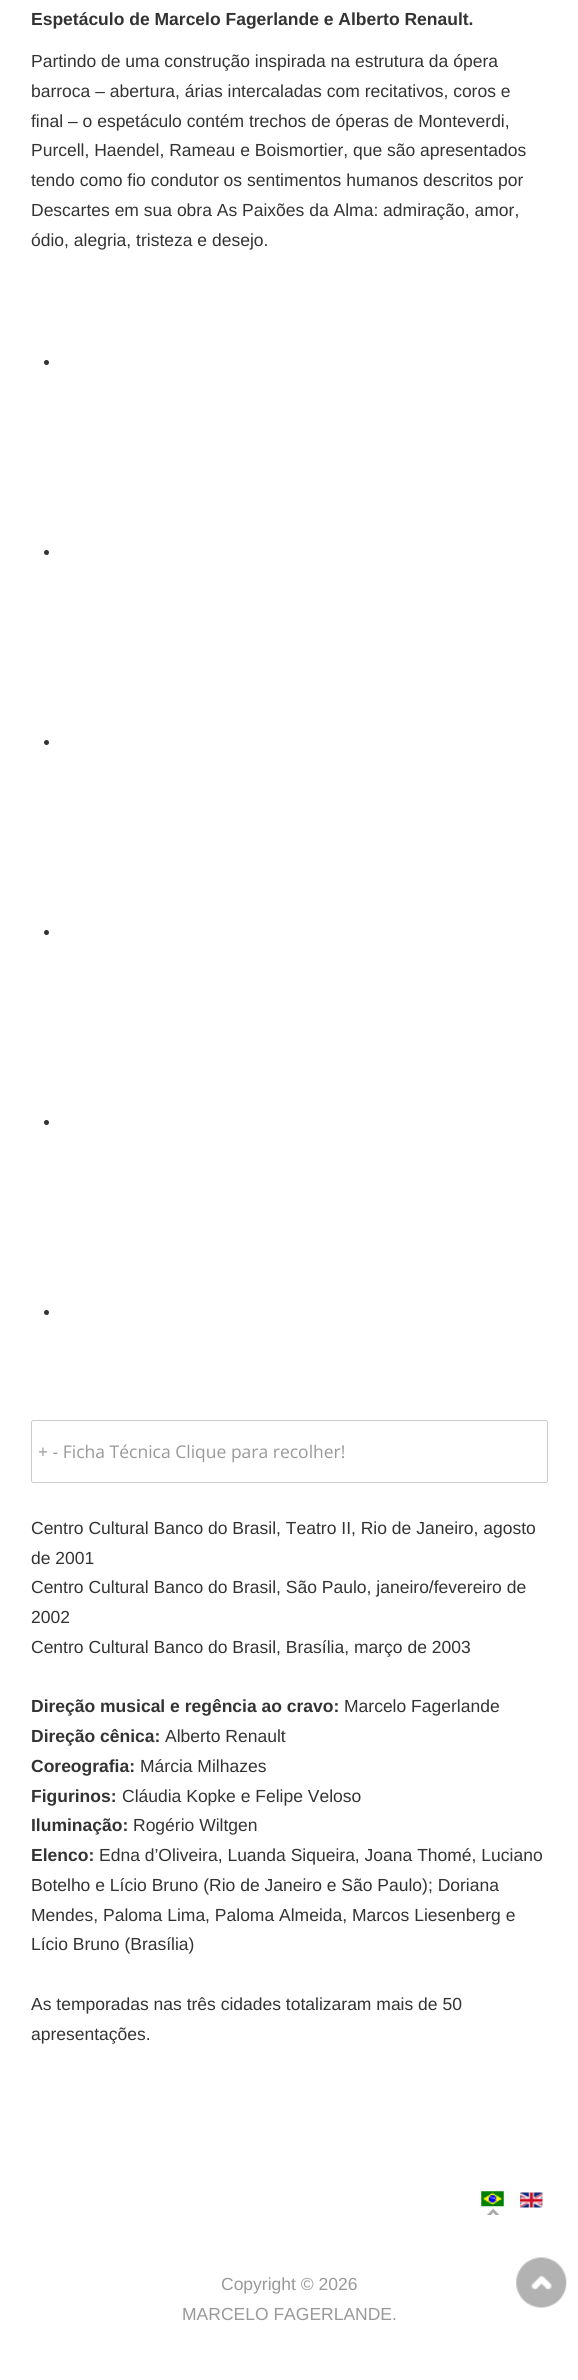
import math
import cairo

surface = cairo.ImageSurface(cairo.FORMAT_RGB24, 578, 2380)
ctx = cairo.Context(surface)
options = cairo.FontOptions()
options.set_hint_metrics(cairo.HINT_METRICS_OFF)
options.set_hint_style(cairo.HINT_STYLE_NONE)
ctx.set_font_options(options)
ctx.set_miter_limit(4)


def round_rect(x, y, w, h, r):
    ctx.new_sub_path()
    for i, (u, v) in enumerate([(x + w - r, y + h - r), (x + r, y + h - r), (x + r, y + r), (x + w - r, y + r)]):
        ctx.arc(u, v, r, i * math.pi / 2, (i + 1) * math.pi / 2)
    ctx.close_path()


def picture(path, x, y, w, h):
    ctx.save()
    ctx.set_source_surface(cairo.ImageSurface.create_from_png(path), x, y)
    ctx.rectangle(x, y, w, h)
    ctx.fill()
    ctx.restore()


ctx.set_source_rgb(1, 1, 1)
ctx.paint()
ctx.select_font_face("Liberation Sans", cairo.FONT_SLANT_NORMAL, cairo.FONT_WEIGHT_BOLD)
ctx.set_font_size(17.5)
ctx.set_source_rgb(0.2, 0.2, 0.2)
ctx.move_to(31, 25)
ctx.show_text("Espetáculo de Marcelo Fagerlande e Alberto Renault.")
ctx.select_font_face("Liberation Sans")
ctx.move_to(31, 67)
ctx.show_text("Partindo de uma construção inspirada na estrutura da ópera")
ctx.move_to(31, 97)
ctx.show_text("barroca – abertura, árias intercaladas com recitativos, coros e")
ctx.move_to(31, 127)
ctx.show_text("final – o espetáculo contém trechos de óperas de Monteverdi,")
ctx.move_to(31, 156)
ctx.show_text("Purcell, Haendel, Rameau e Boismortier, que são apresentados")
ctx.move_to(31, 186)
ctx.show_text("tendo como fio condutor os sentimentos humanos descritos por")
ctx.move_to(31, 216)
ctx.show_text("Descartes em sua obra As Paixões da Alma: admiração, amor,")
ctx.move_to(31, 246)
ctx.show_text("ódio, alegria, tristeza e desejo.")
ctx.new_path()
ctx.arc(46.5, 362.5, 2.5, 0, 2 * math.pi)
ctx.fill()
ctx.arc(46.5, 552.5, 2.5, 0, 2 * math.pi)
ctx.fill()
ctx.arc(46.5, 742.5, 2.5, 0, 2 * math.pi)
ctx.fill()
ctx.arc(46.5, 932.5, 2.5, 0, 2 * math.pi)
ctx.fill()
ctx.arc(46.5, 1122.5, 2.5, 0, 2 * math.pi)
ctx.fill()
ctx.arc(46.5, 1312.5, 2.5, 0, 2 * math.pi)
ctx.fill()
round_rect(31.5, 1420.5, 516, 62, 2)
ctx.set_source_rgb(0.8, 0.8, 0.8)
ctx.set_line_width(1)
ctx.stroke()
ctx.select_font_face("Open Sans")
ctx.set_source_rgb(0.6, 0.6, 0.6)
ctx.move_to(38, 1458)
ctx.show_text("+ - Ficha Técnica Clique para recolher!")
ctx.select_font_face("Liberation Sans")
ctx.set_source_rgb(0.2, 0.2, 0.2)
ctx.move_to(31, 1534)
ctx.show_text("Centro Cultural Banco do Brasil, Teatro II, Rio de Janeiro, agosto")
ctx.move_to(31, 1564)
ctx.show_text("de 2001")
ctx.move_to(31, 1593)
ctx.show_text("Centro Cultural Banco do Brasil, São Paulo, janeiro/fevereiro de")
ctx.move_to(31, 1623)
ctx.show_text("2002")
ctx.move_to(31, 1653)
ctx.show_text("Centro Cultural Banco do Brasil, Brasília, março de 2003")
ctx.select_font_face("Liberation Sans", cairo.FONT_SLANT_NORMAL, cairo.FONT_WEIGHT_BOLD)
ctx.move_to(31, 1712)
ctx.show_text("Direção musical e regência ao cravo:")
ctx.select_font_face("Liberation Sans")
ctx.move_to(344, 1712)
ctx.show_text("Marcelo Fagerlande")
ctx.select_font_face("Liberation Sans", cairo.FONT_SLANT_NORMAL, cairo.FONT_WEIGHT_BOLD)
ctx.move_to(31, 1742)
ctx.show_text("Direção cênica:")
ctx.select_font_face("Liberation Sans")
ctx.move_to(165, 1742)
ctx.show_text("Alberto Renault")
ctx.select_font_face("Liberation Sans", cairo.FONT_SLANT_NORMAL, cairo.FONT_WEIGHT_BOLD)
ctx.move_to(31, 1772)
ctx.show_text("Coreografia:")
ctx.select_font_face("Liberation Sans")
ctx.move_to(140, 1772)
ctx.show_text("Márcia Milhazes")
ctx.select_font_face("Liberation Sans", cairo.FONT_SLANT_NORMAL, cairo.FONT_WEIGHT_BOLD)
ctx.move_to(31, 1802)
ctx.show_text("Figurinos:")
ctx.select_font_face("Liberation Sans")
ctx.move_to(122, 1802)
ctx.show_text("Cláudia Kopke e Felipe Veloso")
ctx.select_font_face("Liberation Sans", cairo.FONT_SLANT_NORMAL, cairo.FONT_WEIGHT_BOLD)
ctx.move_to(31, 1831)
ctx.show_text("Iluminação:")
ctx.select_font_face("Liberation Sans")
ctx.move_to(133, 1831)
ctx.show_text("Rogério Wiltgen")
ctx.select_font_face("Liberation Sans", cairo.FONT_SLANT_NORMAL, cairo.FONT_WEIGHT_BOLD)
ctx.move_to(31, 1861)
ctx.show_text("Elenco:")
ctx.select_font_face("Liberation Sans")
ctx.move_to(99, 1861)
ctx.show_text("Edna d’Oliveira, Luanda Siqueira, Joana Thomé, Luciano")
ctx.move_to(31, 1891)
ctx.show_text("Botelho e Lício Bruno (Rio de Janeiro e São Paulo); Doriana")
ctx.move_to(31, 1921)
ctx.show_text("Mendes, Paloma Lima, Paloma Almeida, Marcos Liesenberg e")
ctx.move_to(31, 1950)
ctx.show_text("Lício Bruno (Brasília)")
ctx.move_to(31, 2010)
ctx.show_text("As temporadas nas três cidades totalizaram mais de 50")
ctx.move_to(31, 2040)
ctx.show_text("apresentações.")
picture("img1.png", 481, 2191, 23, 16)
picture("img2.png", 520, 2192, 23, 16)
picture("img3.png", 487, 2208, 12, 7)
ctx.set_source_rgb(0.6, 0.6, 0.6)
ctx.move_to(221, 2290)
ctx.show_text("Copyright © 2026")
ctx.move_to(182, 2320)
ctx.show_text("MARCELO FAGERLANDE.")
picture("img4.png", 516, 2257, 51, 51)
surface.write_to_png("page.png")
